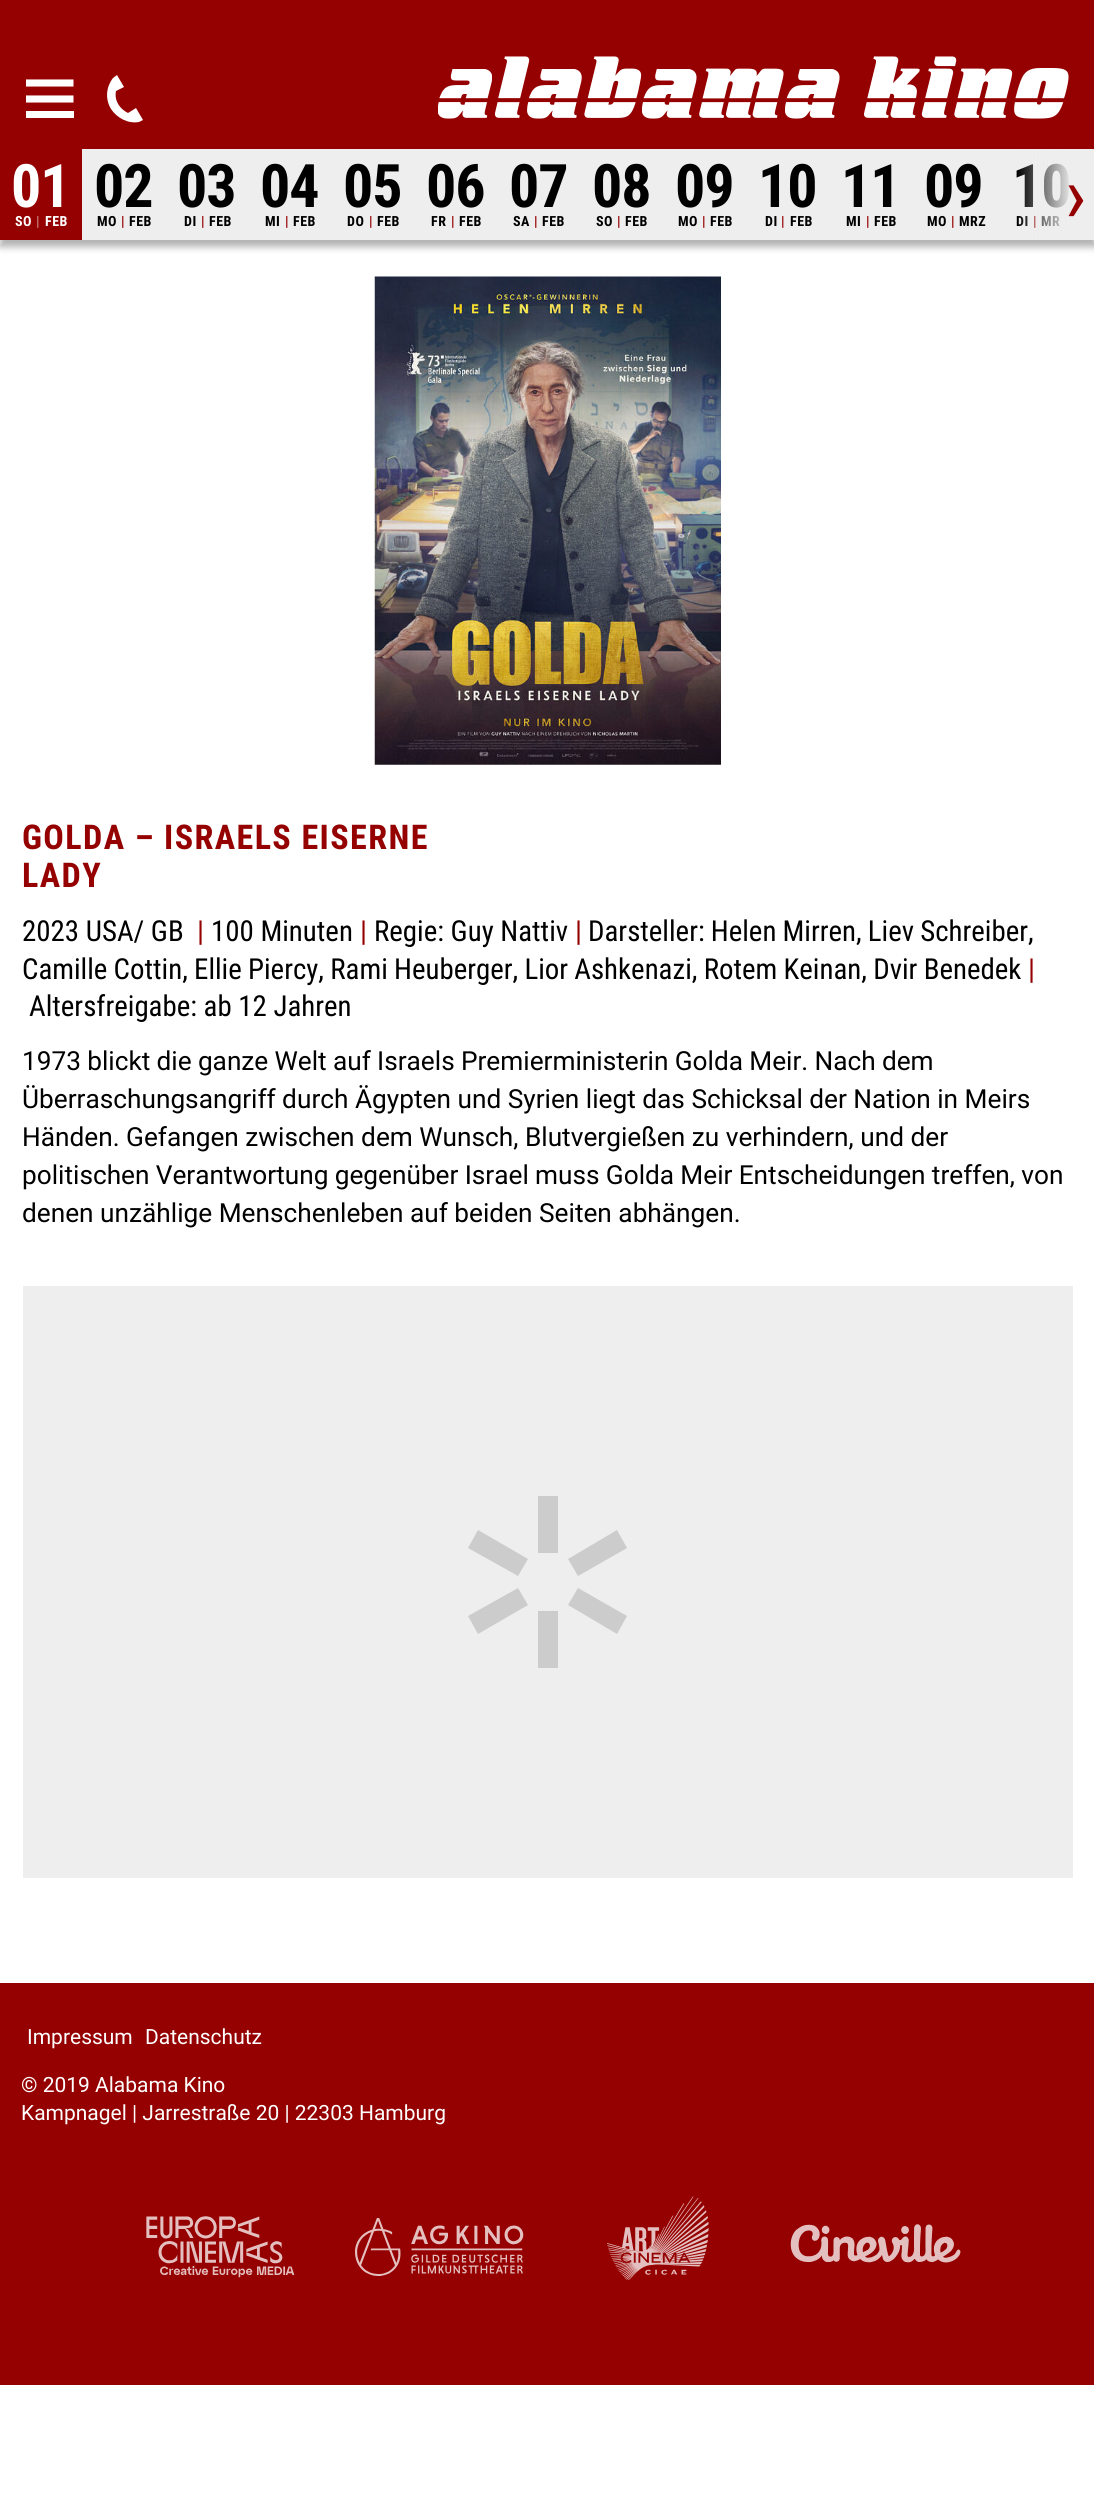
import math
import cairo

surface = cairo.ImageSurface(cairo.FORMAT_RGB24, 1094, 2493)
ctx = cairo.Context(surface)
options = cairo.FontOptions()
options.set_hint_metrics(cairo.HINT_METRICS_OFF)
options.set_hint_style(cairo.HINT_STYLE_NONE)
ctx.set_font_options(options)
ctx.set_miter_limit(4)


def spaced_text(x, y, s, letter, word):
    ctx.move_to(x, y)
    for ch in s:
        ctx.show_text(ch)
        ctx.rel_move_to(letter + word * (ch == ' '), 0)


def round_rect(x, y, w, h, r):
    ctx.new_sub_path()
    for i, (u, v) in enumerate([(x + w - r, y + h - r), (x + r, y + h - r), (x + r, y + r), (x + w - r, y + r)]):
        ctx.arc(u, v, r, i * math.pi / 2, (i + 1) * math.pi / 2)
    ctx.close_path()


def shadow(x, y, w, h, r, blur, alpha):
    ctx.push_group_with_content(cairo.CONTENT_ALPHA)
    ctx.set_operator(cairo.OPERATOR_SOURCE)
    for i in range(15, -16, -2):
        e = blur * i / 6
        if min(w, h) + 2 * e > 0:
            ctx.set_source_rgba(0, 0, 0, alpha * math.erfc((i - 1) / 8.5) / 2)
            round_rect(x - e, y - e, w + 2 * e, h + 2 * e, max(0, min(r + e + blur * .6, min(w, h) / 2 + e)))
            ctx.fill()
    ctx.mask(ctx.pop_group())


def picture(path, x, y, w, h):
    ctx.save()
    ctx.set_source_surface(cairo.ImageSurface.create_from_png(path), x, y)
    ctx.rectangle(x, y, w, h)
    ctx.fill()
    ctx.restore()


ctx.set_source_rgb(1, 1, 1)
ctx.paint()
ctx.set_source_rgb(0.584, 0, 0)
ctx.rectangle(0, 0, 1094, 149)
ctx.fill()
ctx.new_path()
ctx.move_to(73.5, 83)
ctx.line_to(26, 83)
ctx.move_to(73.5, 99)
ctx.line_to(26, 99)
ctx.set_source_rgb(1, 1, 1)
ctx.set_line_width(7.1)
ctx.stroke()
ctx.rectangle(26, 111, 48, 7)
ctx.fill()
ctx.new_path()
ctx.move_to(113, 78)
ctx.line_to(117, 75)
ctx.line_to(124, 87)
ctx.line_to(116, 91)
ctx.curve_to(114, 101, 120, 109, 128, 113)
ctx.line_to(136, 108)
ctx.line_to(143, 120)
ctx.line_to(139, 122)
ctx.curve_to(128, 124, 117, 118, 111, 109)
ctx.curve_to(105, 99, 106, 87, 113, 78)
ctx.close_path()
ctx.fill()
picture("img1.png", 438, 56, 631, 63)
ctx.set_source_rgb(0, 0, 0)
shadow(0, 156, 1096, 91, 0, 3.5, 0.3)
ctx.set_source_rgb(0.933, 0.933, 0.933)
ctx.rectangle(82, 149, 990, 91)
ctx.fill()
ctx.set_source_rgb(0.584, 0, 0)
ctx.rectangle(0, 149, 82, 91)
ctx.fill()
ctx.select_font_face("Roboto Condensed", cairo.FONT_SLANT_NORMAL, cairo.FONT_WEIGHT_BOLD)
ctx.set_font_size(60)
ctx.set_source_rgb(1, 1, 1)
spaced_text(11, 207, "01", -1, 0)
ctx.set_font_size(14)
spaced_text(15, 226, "SO", 0.5, 0)
ctx.select_font_face("Roboto", cairo.FONT_SLANT_NORMAL, cairo.FONT_WEIGHT_BOLD)
ctx.set_source_rgb(0.792, 0.502, 0.502)
spaced_text(36, 226, "|", 0.5, 0)
ctx.select_font_face("Roboto Condensed", cairo.FONT_SLANT_NORMAL, cairo.FONT_WEIGHT_BOLD)
ctx.set_source_rgb(1, 1, 1)
spaced_text(45, 226, "FEB", 0.5, 0)
ctx.set_font_size(60)
ctx.set_source_rgb(0, 0, 0)
spaced_text(94, 207, "02", -1, 0)
ctx.set_font_size(14)
spaced_text(97, 226, "MO", 0.5, 0)
ctx.select_font_face("Roboto", cairo.FONT_SLANT_NORMAL, cairo.FONT_WEIGHT_BOLD)
ctx.set_source_rgb(0.584, 0, 0)
spaced_text(121, 226, "|", 0.5, 0)
ctx.select_font_face("Roboto Condensed", cairo.FONT_SLANT_NORMAL, cairo.FONT_WEIGHT_BOLD)
ctx.set_source_rgb(0, 0, 0)
spaced_text(129, 226, "FEB", 0.5, 0)
ctx.set_font_size(60)
spaced_text(177, 207, "03", -1, 0)
ctx.set_font_size(14)
spaced_text(184, 226, "DI", 0.5, 0)
ctx.select_font_face("Roboto", cairo.FONT_SLANT_NORMAL, cairo.FONT_WEIGHT_BOLD)
ctx.set_source_rgb(0.584, 0, 0)
spaced_text(201, 226, "|", 0.5, 0)
ctx.select_font_face("Roboto Condensed", cairo.FONT_SLANT_NORMAL, cairo.FONT_WEIGHT_BOLD)
ctx.set_source_rgb(0, 0, 0)
spaced_text(209, 226, "FEB", 0.5, 0)
ctx.set_font_size(60)
spaced_text(260, 207, "04", -1, 0)
ctx.set_font_size(14)
spaced_text(265, 226, "MI", 0.5, 0)
ctx.select_font_face("Roboto", cairo.FONT_SLANT_NORMAL, cairo.FONT_WEIGHT_BOLD)
ctx.set_source_rgb(0.584, 0, 0)
spaced_text(285, 226, "|", 0.5, 0)
ctx.select_font_face("Roboto Condensed", cairo.FONT_SLANT_NORMAL, cairo.FONT_WEIGHT_BOLD)
ctx.set_source_rgb(0, 0, 0)
spaced_text(293, 226, "FEB", 0.5, 0)
ctx.set_font_size(60)
spaced_text(343, 207, "05", -1, 0)
ctx.set_font_size(14)
spaced_text(347, 226, "DO", 0.5, 0)
ctx.select_font_face("Roboto", cairo.FONT_SLANT_NORMAL, cairo.FONT_WEIGHT_BOLD)
ctx.set_source_rgb(0.584, 0, 0)
spaced_text(369, 226, "|", 0.5, 0)
ctx.select_font_face("Roboto Condensed", cairo.FONT_SLANT_NORMAL, cairo.FONT_WEIGHT_BOLD)
ctx.set_source_rgb(0, 0, 0)
spaced_text(377, 226, "FEB", 0.5, 0)
ctx.set_font_size(60)
spaced_text(426, 207, "06", -1, 0)
ctx.set_font_size(14)
spaced_text(431, 226, "FR", 0.5, 0)
ctx.select_font_face("Roboto", cairo.FONT_SLANT_NORMAL, cairo.FONT_WEIGHT_BOLD)
ctx.set_source_rgb(0.584, 0, 0)
spaced_text(451, 226, "|", 0.5, 0)
ctx.select_font_face("Roboto Condensed", cairo.FONT_SLANT_NORMAL, cairo.FONT_WEIGHT_BOLD)
ctx.set_source_rgb(0, 0, 0)
spaced_text(459, 226, "FEB", 0.5, 0)
ctx.set_font_size(60)
spaced_text(509, 207, "07", -1, 0)
ctx.set_font_size(14)
spaced_text(513, 226, "SA", 0.5, 0)
ctx.select_font_face("Roboto", cairo.FONT_SLANT_NORMAL, cairo.FONT_WEIGHT_BOLD)
ctx.set_source_rgb(0.584, 0, 0)
spaced_text(534, 226, "|", 0.5, 0)
ctx.select_font_face("Roboto Condensed", cairo.FONT_SLANT_NORMAL, cairo.FONT_WEIGHT_BOLD)
ctx.set_source_rgb(0, 0, 0)
spaced_text(542, 226, "FEB", 0.5, 0)
ctx.set_font_size(60)
spaced_text(592, 207, "08", -1, 0)
ctx.set_font_size(14)
spaced_text(596, 226, "SO", 0.5, 0)
ctx.select_font_face("Roboto", cairo.FONT_SLANT_NORMAL, cairo.FONT_WEIGHT_BOLD)
ctx.set_source_rgb(0.584, 0, 0)
spaced_text(617, 226, "|", 0.5, 0)
ctx.select_font_face("Roboto Condensed", cairo.FONT_SLANT_NORMAL, cairo.FONT_WEIGHT_BOLD)
ctx.set_source_rgb(0, 0, 0)
spaced_text(625, 226, "FEB", 0.5, 0)
ctx.set_font_size(60)
spaced_text(675, 207, "09", -1, 0)
ctx.set_font_size(14)
spaced_text(678, 226, "MO", 0.5, 0)
ctx.select_font_face("Roboto", cairo.FONT_SLANT_NORMAL, cairo.FONT_WEIGHT_BOLD)
ctx.set_source_rgb(0.584, 0, 0)
spaced_text(702, 226, "|", 0.5, 0)
ctx.select_font_face("Roboto Condensed", cairo.FONT_SLANT_NORMAL, cairo.FONT_WEIGHT_BOLD)
ctx.set_source_rgb(0, 0, 0)
spaced_text(710, 226, "FEB", 0.5, 0)
ctx.set_font_size(60)
spaced_text(758, 207, "10", -1, 0)
ctx.set_font_size(14)
spaced_text(765, 226, "DI", 0.5, 0)
ctx.select_font_face("Roboto", cairo.FONT_SLANT_NORMAL, cairo.FONT_WEIGHT_BOLD)
ctx.set_source_rgb(0.584, 0, 0)
spaced_text(781, 226, "|", 0.5, 0)
ctx.select_font_face("Roboto Condensed", cairo.FONT_SLANT_NORMAL, cairo.FONT_WEIGHT_BOLD)
ctx.set_source_rgb(0, 0, 0)
spaced_text(790, 226, "FEB", 0.5, 0)
ctx.set_font_size(60)
spaced_text(841, 207, "11", -1, 0)
ctx.set_font_size(14)
spaced_text(846, 226, "MI", 0.5, 0)
ctx.select_font_face("Roboto", cairo.FONT_SLANT_NORMAL, cairo.FONT_WEIGHT_BOLD)
ctx.set_source_rgb(0.584, 0, 0)
spaced_text(866, 226, "|", 0.5, 0)
ctx.select_font_face("Roboto Condensed", cairo.FONT_SLANT_NORMAL, cairo.FONT_WEIGHT_BOLD)
ctx.set_source_rgb(0, 0, 0)
spaced_text(874, 226, "FEB", 0.5, 0)
ctx.set_font_size(60)
spaced_text(924, 207, "09", -1, 0)
ctx.set_font_size(14)
spaced_text(927, 226, "MO", 0.5, 0)
ctx.select_font_face("Roboto", cairo.FONT_SLANT_NORMAL, cairo.FONT_WEIGHT_BOLD)
ctx.set_source_rgb(0.584, 0, 0)
spaced_text(951, 226, "|", 0.5, 0)
ctx.select_font_face("Roboto Condensed", cairo.FONT_SLANT_NORMAL, cairo.FONT_WEIGHT_BOLD)
ctx.set_source_rgb(0, 0, 0)
spaced_text(959, 226, "MRZ", 0.5, 0)
ctx.set_font_size(60)
spaced_text(1012, 207, "10", -1, 0)
ctx.set_font_size(14)
spaced_text(1016, 226, "DI", 0.5, 0)
ctx.select_font_face("Roboto", cairo.FONT_SLANT_NORMAL, cairo.FONT_WEIGHT_BOLD)
ctx.set_source_rgb(0.584, 0, 0)
spaced_text(1033, 226, "|", 0.5, 0)
ctx.select_font_face("Roboto Condensed", cairo.FONT_SLANT_NORMAL, cairo.FONT_WEIGHT_BOLD)
ctx.set_source_rgb(0, 0, 0)
spaced_text(1041, 226, "MR", 0.5, 0)
gradient = cairo.LinearGradient(1017, 194, 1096, 194)
gradient.add_color_stop_rgba(0, 0.933, 0.933, 0.933, 0)
gradient.add_color_stop_rgba(0.7, 0.933, 0.933, 0.933, 1)
ctx.set_source(gradient)
ctx.rectangle(1018, 149, 76, 91)
ctx.fill()
ctx.select_font_face("Roboto Condensed")
ctx.set_font_size(79)
ctx.set_source_rgb(0.584, 0, 0)
ctx.move_to(1065, 222)
ctx.show_text("›")
picture("img2.png", 374, 276, 347, 489)
ctx.select_font_face("Roboto Condensed", cairo.FONT_SLANT_NORMAL, cairo.FONT_WEIGHT_BOLD)
ctx.set_font_size(34.1)
spaced_text(22, 849, "GOLDA – ISRAELS EISERNE", 1.4, 0)
spaced_text(22, 887, "LADY", 1.4, 0)
ctx.select_font_face("Roboto Condensed")
ctx.set_font_size(28.9)
ctx.set_source_rgb(0, 0, 0)
ctx.move_to(22, 941)
ctx.show_text("2023 USA/ GB")
ctx.set_source_rgb(0.584, 0, 0)
ctx.move_to(197, 941)
ctx.show_text("|")
ctx.set_source_rgb(0, 0, 0)
ctx.move_to(211, 941)
ctx.show_text("100 Minuten")
ctx.set_source_rgb(0.584, 0, 0)
ctx.move_to(360, 941)
ctx.show_text("|")
ctx.set_source_rgb(0, 0, 0)
ctx.move_to(374, 941)
ctx.show_text("Regie: Guy Nattiv")
ctx.set_source_rgb(0.584, 0, 0)
ctx.move_to(575, 941)
ctx.show_text("|")
ctx.set_source_rgb(0, 0, 0)
spaced_text(588, 941, "Darsteller: Helen Mirren, Liev Schreiber,", 0, -0.5)
spaced_text(22, 979, "Camille Cottin, Ellie Piercy, Rami Heuberger, Lior Ashkenazi, Rotem Keinan, Dvir Benedek", 0, -0.4)
ctx.set_source_rgb(0.584, 0, 0)
ctx.move_to(1028, 979)
ctx.show_text("|")
ctx.set_source_rgb(0, 0, 0)
ctx.move_to(29, 1016)
ctx.show_text("Altersfreigabe: ab 12 Jahren")
ctx.select_font_face("Roboto")
ctx.set_font_size(26.25)
spaced_text(22, 1070, "1973 blickt die ganze Welt auf Israels Premierministerin Golda Meir. Nach dem", 0, -0.25)
ctx.move_to(22, 1108)
ctx.show_text("Überraschungsangriff durch Ägypten und Syrien liegt das Schicksal der Nation in Meirs")
ctx.move_to(22, 1146)
ctx.show_text("Händen. Gefangen zwischen dem Wunsch, Blutvergießen zu verhindern, und der")
spaced_text(22, 1184, "politischen Verantwortung gegenüber Israel muss Golda Meir Entscheidungen treffen, von", 0, -0.25)
ctx.move_to(22, 1222)
ctx.show_text("denen unzählige Menschenleben auf beiden Seiten abhängen.")
ctx.set_source_rgb(0.933, 0.933, 0.933)
ctx.rectangle(23, 1286, 1050, 592)
ctx.fill()
ctx.set_source_rgb(0.8, 0.8, 0.8)
ctx.rectangle(538, 1496, 20, 57)
ctx.fill()
ctx.new_path()
ctx.move_to(578, 1576)
ctx.line_to(568, 1559)
ctx.line_to(617, 1530)
ctx.line_to(627, 1548)
ctx.close_path()
ctx.fill()
ctx.new_path()
ctx.move_to(568, 1605)
ctx.line_to(578, 1588)
ctx.line_to(627, 1616)
ctx.line_to(617, 1634)
ctx.close_path()
ctx.fill()
ctx.rectangle(538, 1611, 20, 57)
ctx.fill()
ctx.new_path()
ctx.move_to(518, 1588)
ctx.line_to(528, 1605)
ctx.line_to(478, 1634)
ctx.line_to(468, 1616)
ctx.close_path()
ctx.fill()
ctx.new_path()
ctx.move_to(528, 1559)
ctx.line_to(518, 1576)
ctx.line_to(468, 1548)
ctx.line_to(478, 1530)
ctx.close_path()
ctx.fill()
ctx.set_source_rgb(0.584, 0, 0)
ctx.rectangle(0, 1983, 1094, 402)
ctx.fill()
ctx.set_font_size(21)
ctx.set_source_rgb(1, 1, 1)
ctx.move_to(27, 2044)
ctx.show_text("Impressum")
ctx.move_to(145, 2044)
ctx.show_text("Datenschutz")
ctx.move_to(21, 2092)
ctx.show_text("© 2019 Alabama Kino")
ctx.move_to(21, 2120)
ctx.show_text("Kampnagel | Jarrestraße 20 | 22303 Hamburg")
picture("img3.png", 146, 2216, 149, 62)
picture("img4.png", 355, 2218, 169, 58)
picture("img5.png", 607, 2196, 102, 84)
picture("img6.png", 790, 2224, 171, 39)
surface.write_to_png("page.png")
